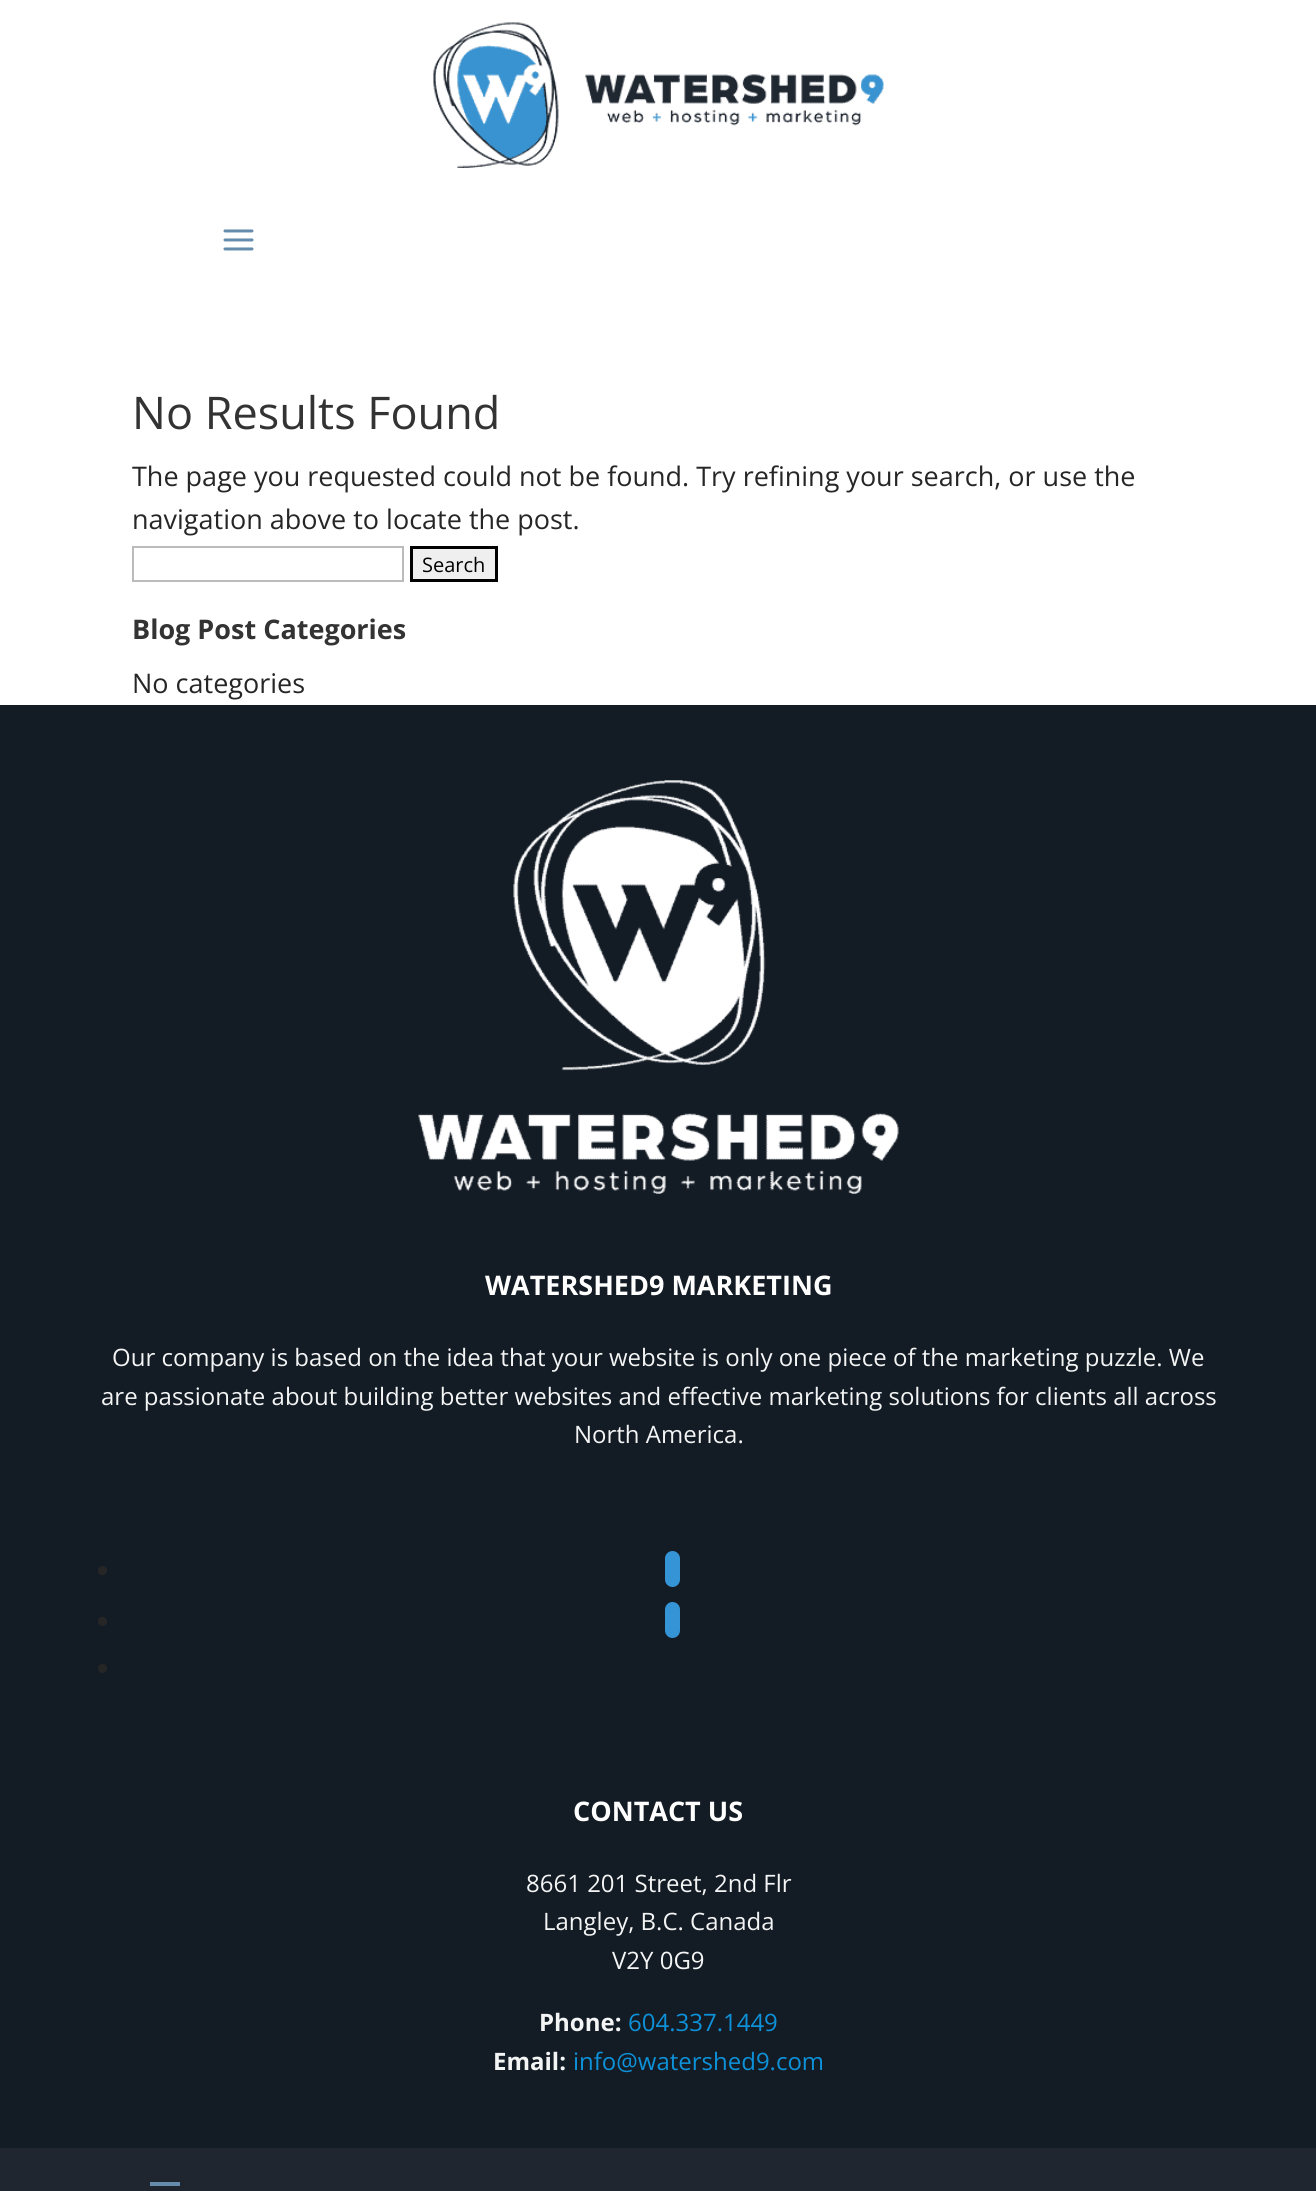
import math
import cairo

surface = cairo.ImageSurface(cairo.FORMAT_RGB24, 1316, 2191)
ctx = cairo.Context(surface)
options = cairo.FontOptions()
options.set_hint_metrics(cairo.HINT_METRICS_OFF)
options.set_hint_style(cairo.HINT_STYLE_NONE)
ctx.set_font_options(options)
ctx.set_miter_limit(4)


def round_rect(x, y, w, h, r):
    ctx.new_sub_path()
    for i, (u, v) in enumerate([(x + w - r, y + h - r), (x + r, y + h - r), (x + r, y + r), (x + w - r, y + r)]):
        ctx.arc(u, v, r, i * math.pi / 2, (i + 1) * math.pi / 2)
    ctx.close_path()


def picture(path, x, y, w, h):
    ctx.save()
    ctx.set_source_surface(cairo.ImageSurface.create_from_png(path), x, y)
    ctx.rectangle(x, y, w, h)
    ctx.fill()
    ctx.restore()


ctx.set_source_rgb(1, 1, 1)
ctx.paint()
picture("img1.png", 433, 22, 451, 146)
picture("img2.png", 223, 229, 31, 22)
ctx.select_font_face("Open Sans")
ctx.set_font_size(45)
ctx.set_source_rgb(0.2, 0.2, 0.2)
ctx.move_to(132, 429)
ctx.show_text("No Results Found")
ctx.set_font_size(27)
ctx.set_source_rgb(0.149, 0.149, 0.149)
ctx.move_to(132, 486)
ctx.show_text("The page you requested could not be found. Try refining your search, or use the")
ctx.move_to(132, 529)
ctx.show_text("navigation above to locate the post.")
ctx.rectangle(133, 547, 270, 34)
ctx.set_source_rgb(0.733, 0.733, 0.733)
ctx.stroke()
ctx.set_source_rgb(0.937, 0.937, 0.937)
ctx.rectangle(411.5, 547.5, 85, 33)
ctx.fill_preserve()
ctx.set_source_rgb(0, 0, 0)
ctx.set_line_width(3)
ctx.stroke()
ctx.set_font_size(20)
ctx.move_to(422, 572)
ctx.show_text("Search")
ctx.select_font_face("Open Sans", cairo.FONT_SLANT_NORMAL, cairo.FONT_WEIGHT_BOLD)
ctx.set_font_size(27)
ctx.set_source_rgb(0.2, 0.2, 0.2)
ctx.move_to(132, 639)
ctx.show_text("Blog Post Categories")
ctx.select_font_face("Open Sans")
ctx.set_source_rgb(0.149, 0.149, 0.149)
ctx.move_to(132, 693)
ctx.show_text("No categories")
ctx.set_source_rgb(0.075, 0.106, 0.145)
ctx.rectangle(0, 705, 1316, 1443)
ctx.fill()
picture("img3.png", 418, 780, 481, 414)
ctx.select_font_face("Open Sans", cairo.FONT_SLANT_NORMAL, cairo.FONT_WEIGHT_BOLD)
ctx.set_source_rgb(1, 1, 1)
ctx.move_to(485, 1295)
ctx.show_text("WATERSHED9 MARKETING")
ctx.select_font_face("Open Sans")
ctx.set_font_size(24)
ctx.set_source_rgb(0.953, 0.957, 0.957)
ctx.move_to(112, 1366)
ctx.show_text("Our company is based on the idea that your website is only one piece of the marketing puzzle. We")
ctx.move_to(101, 1405)
ctx.show_text("are passionate about building better websites and effective marketing solutions for clients all across")
ctx.move_to(574, 1443)
ctx.show_text("North America.")
ctx.set_source_rgb(0.149, 0.149, 0.149)
ctx.new_path()
ctx.arc(102.5, 1570.5, 4.5, 0, 2 * math.pi)
ctx.fill()
ctx.set_source_rgb(0.204, 0.58, 0.835)
round_rect(665, 1551, 15, 36, 7.5)
ctx.fill()
ctx.set_source_rgb(0.149, 0.149, 0.149)
ctx.arc(102.5, 1621.5, 4.5, 0, 2 * math.pi)
ctx.fill()
ctx.set_source_rgb(0.204, 0.58, 0.835)
round_rect(665, 1602, 15, 36, 7.5)
ctx.fill()
ctx.set_source_rgb(0.149, 0.149, 0.149)
ctx.arc(102.5, 1668.5, 4.5, 0, 2 * math.pi)
ctx.fill()
ctx.select_font_face("Open Sans", cairo.FONT_SLANT_NORMAL, cairo.FONT_WEIGHT_BOLD)
ctx.set_font_size(27)
ctx.set_source_rgb(1, 1, 1)
ctx.move_to(573, 1821)
ctx.show_text("CONTACT US")
ctx.select_font_face("Open Sans")
ctx.set_font_size(24)
ctx.set_source_rgb(0.953, 0.957, 0.957)
ctx.move_to(526, 1892)
ctx.show_text("8661 201 Street, 2nd Flr")
ctx.move_to(543, 1930)
ctx.show_text("Langley, B.C. Canada")
ctx.move_to(612, 1969)
ctx.show_text("V2Y 0G9")
ctx.select_font_face("Open Sans", cairo.FONT_SLANT_NORMAL, cairo.FONT_WEIGHT_BOLD)
ctx.move_to(539, 2031)
ctx.show_text("Phone:")
ctx.select_font_face("Open Sans")
ctx.set_source_rgb(0.051, 0.569, 0.847)
ctx.move_to(628, 2031)
ctx.show_text("604.337.1449")
ctx.select_font_face("Open Sans", cairo.FONT_SLANT_NORMAL, cairo.FONT_WEIGHT_BOLD)
ctx.set_source_rgb(0.953, 0.957, 0.957)
ctx.move_to(493, 2070)
ctx.show_text("Email:")
ctx.select_font_face("Open Sans")
ctx.set_source_rgb(0.051, 0.569, 0.847)
ctx.move_to(573, 2070)
ctx.show_text("info@watershed9.com")
ctx.set_source_rgb(0.122, 0.149, 0.188)
ctx.rectangle(0, 2148, 1316, 43)
ctx.fill()
ctx.set_source_rgb(0.4, 0.549, 0.678)
ctx.rectangle(150, 2182, 30, 4)
ctx.fill()
surface.write_to_png("page.png")
